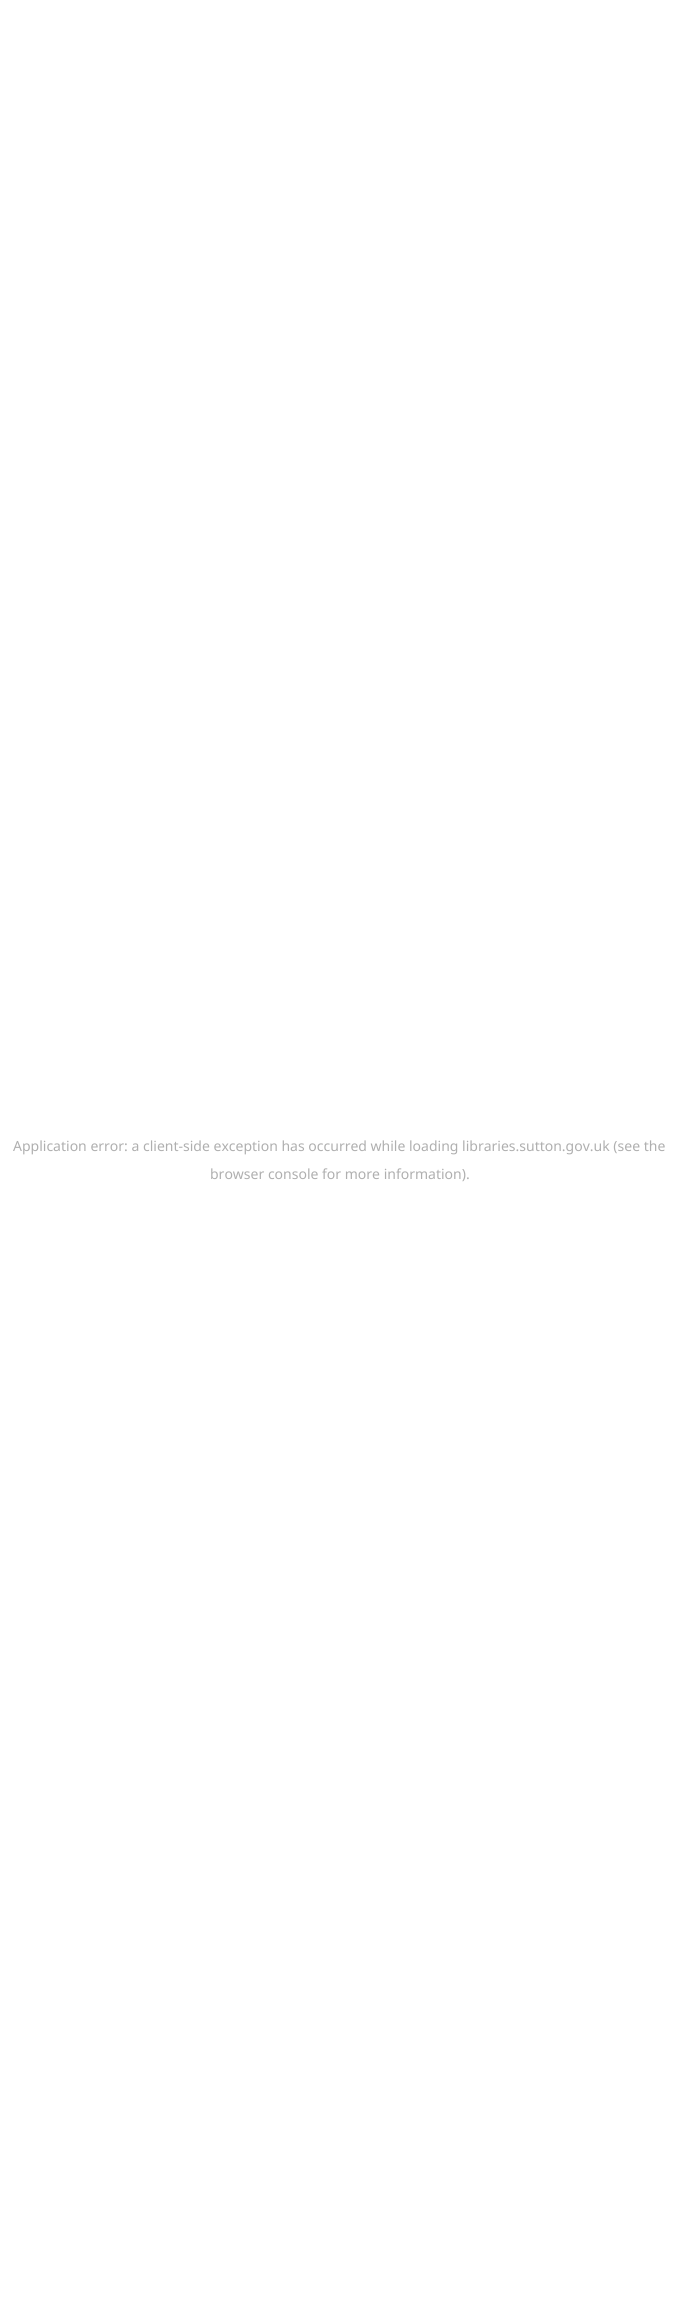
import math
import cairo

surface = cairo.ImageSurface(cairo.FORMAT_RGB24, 679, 2320)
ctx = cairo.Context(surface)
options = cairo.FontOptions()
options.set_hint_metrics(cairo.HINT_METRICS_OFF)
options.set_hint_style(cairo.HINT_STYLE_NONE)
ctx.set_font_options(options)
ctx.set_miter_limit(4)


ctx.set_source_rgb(1, 1, 1)
ctx.paint()
ctx.select_font_face("Noto Sans")
ctx.set_font_size(14)
ctx.set_source_rgb(0.686, 0.686, 0.686)
ctx.move_to(13, 1151)
ctx.show_text("Application error: a client-side exception has occurred while loading libraries.sutton.gov.uk (see the")
ctx.move_to(210, 1179)
ctx.show_text("browser console for more information).")
surface.write_to_png("page.png")
